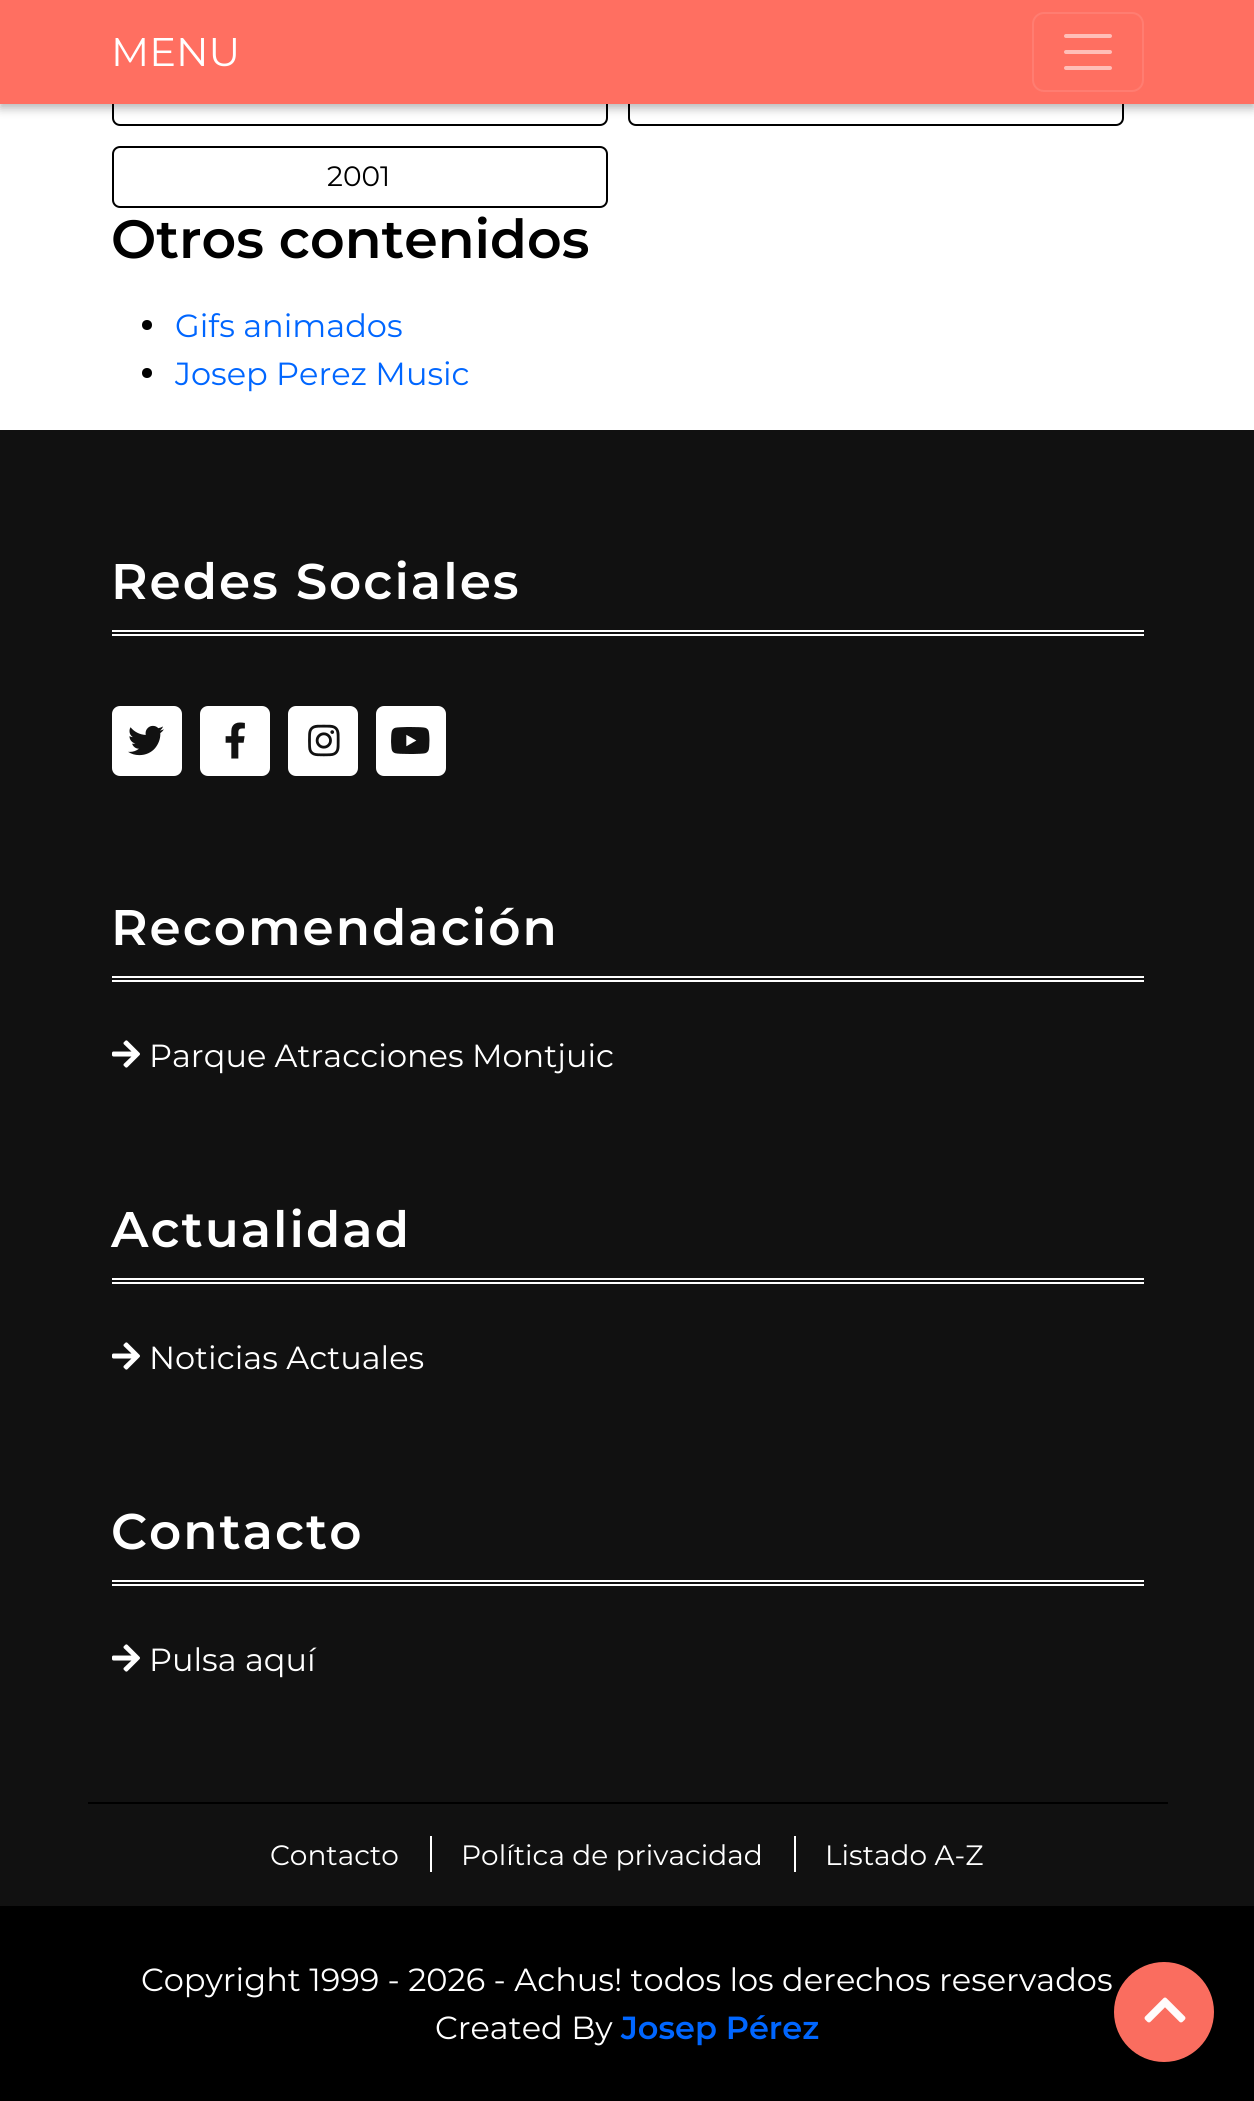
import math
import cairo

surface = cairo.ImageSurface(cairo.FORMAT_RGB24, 1254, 2101)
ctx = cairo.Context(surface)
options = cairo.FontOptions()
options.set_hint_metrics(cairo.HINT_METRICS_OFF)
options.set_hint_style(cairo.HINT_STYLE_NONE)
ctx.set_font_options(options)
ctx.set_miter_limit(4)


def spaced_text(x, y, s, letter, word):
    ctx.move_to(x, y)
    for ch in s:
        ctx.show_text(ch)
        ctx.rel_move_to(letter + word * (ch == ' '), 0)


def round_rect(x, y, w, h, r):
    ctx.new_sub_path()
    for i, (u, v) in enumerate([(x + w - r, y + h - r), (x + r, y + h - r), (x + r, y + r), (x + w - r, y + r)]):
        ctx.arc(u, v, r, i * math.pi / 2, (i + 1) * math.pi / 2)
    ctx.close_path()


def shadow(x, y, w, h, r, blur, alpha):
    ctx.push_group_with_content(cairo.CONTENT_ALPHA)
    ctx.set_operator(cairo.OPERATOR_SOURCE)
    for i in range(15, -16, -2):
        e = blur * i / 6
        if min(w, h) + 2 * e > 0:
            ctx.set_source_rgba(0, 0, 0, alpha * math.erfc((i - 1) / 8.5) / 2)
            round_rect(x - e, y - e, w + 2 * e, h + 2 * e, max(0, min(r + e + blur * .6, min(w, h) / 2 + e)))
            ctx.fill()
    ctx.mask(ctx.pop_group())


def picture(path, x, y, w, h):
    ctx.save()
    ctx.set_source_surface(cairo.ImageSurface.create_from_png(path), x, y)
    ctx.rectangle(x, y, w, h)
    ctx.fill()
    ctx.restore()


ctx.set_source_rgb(1, 1, 1)
ctx.paint()
round_rect(113, 65, 494, 60, 7)
ctx.set_source_rgb(0, 0, 0)
ctx.stroke()
round_rect(629, 65, 494, 60, 7)
ctx.stroke()
ctx.set_source_rgb(0, 0, 0)
shadow(0, 4, 1254, 104, 0, 5, 0.3)
ctx.set_source_rgb(1, 0.435, 0.38)
ctx.rectangle(0, 0, 1254, 104)
ctx.fill()
ctx.select_font_face("Montserrat")
ctx.set_font_size(40)
ctx.set_source_rgb(1, 1, 1)
ctx.move_to(111, 66)
ctx.show_text("MENU")
round_rect(1033, 13, 110, 78, 11)
ctx.set_source_rgb(1, 0.49, 0.443)
ctx.stroke()
ctx.new_path()
ctx.move_to(1066, 36)
ctx.line_to(1110, 36)
ctx.move_to(1066, 52)
ctx.line_to(1110, 52)
ctx.move_to(1066, 68)
ctx.line_to(1110, 68)
ctx.set_source_rgb(1, 0.745, 0.722)
ctx.set_line_width(4)
ctx.set_line_cap(cairo.LINE_CAP_ROUND)
ctx.stroke()
round_rect(113, 147, 494, 60, 7)
ctx.set_source_rgb(0, 0, 0)
ctx.set_line_width(2)
ctx.set_line_cap(cairo.LINE_CAP_BUTT)
ctx.stroke()
ctx.set_font_size(28)
ctx.move_to(327, 186)
ctx.show_text("2001")
ctx.select_font_face("Montserrat SemiBold")
ctx.set_font_size(53.75)
ctx.move_to(111, 258)
ctx.show_text("Otros contenidos")
ctx.new_path()
ctx.arc(147, 325, 5, 0, 2 * math.pi)
ctx.fill()
ctx.select_font_face("Montserrat")
ctx.set_font_size(32)
ctx.set_source_rgb(0, 0.4, 1)
ctx.move_to(175, 337)
ctx.show_text("Gifs animados")
ctx.set_source_rgb(0, 0, 0)
ctx.new_path()
ctx.arc(147, 373, 5, 0, 2 * math.pi)
ctx.fill()
ctx.set_source_rgb(0, 0.4, 1)
ctx.move_to(175, 385)
ctx.show_text("Josep Perez Music")
ctx.set_source_rgb(0.067, 0.067, 0.067)
ctx.rectangle(0, 430, 1254, 1476)
ctx.fill()
ctx.set_source_rgb(1, 1, 1)
ctx.rectangle(112, 630, 1032, 2)
ctx.fill()
ctx.rectangle(112, 634, 1032, 2)
ctx.fill()
ctx.select_font_face("Montserrat SemiBold")
ctx.set_font_size(50)
spaced_text(111, 599, "Redes Sociales", 2, 0)
round_rect(112, 706, 70, 70, 8)
ctx.fill()
picture("img1.png", 128, 725, 36, 31)
round_rect(200, 706, 70, 70, 8)
ctx.fill()
picture("img2.png", 225, 722, 20, 37)
round_rect(288, 706, 70, 70, 8)
ctx.fill()
picture("img3.png", 308, 724, 32, 33)
round_rect(376, 706, 70, 70, 8)
ctx.fill()
picture("img4.png", 391, 727, 39, 27)
ctx.rectangle(112, 976, 1032, 2)
ctx.fill()
ctx.rectangle(112, 980, 1032, 2)
ctx.fill()
spaced_text(111, 945, "Recomendación", 2, 0)
picture("img5.png", 112, 1040, 28, 28)
ctx.select_font_face("Montserrat")
ctx.set_font_size(32)
ctx.move_to(149, 1067)
ctx.show_text("Parque Atracciones Montjuic")
ctx.rectangle(112, 1278, 1032, 2)
ctx.fill()
ctx.rectangle(112, 1282, 1032, 2)
ctx.fill()
ctx.select_font_face("Montserrat SemiBold")
ctx.set_font_size(50)
spaced_text(111, 1247, "Actualidad", 2, 0)
picture("img5.png", 112, 1342, 28, 28)
ctx.select_font_face("Montserrat")
ctx.set_font_size(32)
ctx.move_to(149, 1369)
ctx.show_text("Noticias Actuales")
ctx.rectangle(112, 1580, 1032, 2)
ctx.fill()
ctx.rectangle(112, 1584, 1032, 2)
ctx.fill()
ctx.select_font_face("Montserrat SemiBold")
ctx.set_font_size(50)
spaced_text(111, 1549, "Contacto", 2, 0)
picture("img5.png", 112, 1644, 28, 28)
ctx.select_font_face("Montserrat")
ctx.set_font_size(32)
ctx.move_to(149, 1671)
ctx.show_text("Pulsa aquí")
ctx.set_source_rgb(0, 0, 0)
ctx.rectangle(88, 1802, 1080, 2)
ctx.fill()
ctx.set_font_size(28)
ctx.set_source_rgb(1, 1, 1)
ctx.move_to(270, 1865)
ctx.show_text("Contacto")
ctx.rectangle(430, 1836, 2, 36)
ctx.fill()
ctx.move_to(461, 1865)
ctx.show_text("Política de privacidad")
ctx.rectangle(794, 1836, 2, 36)
ctx.fill()
ctx.move_to(825, 1865)
ctx.show_text("Listado A-Z")
ctx.set_source_rgb(0, 0, 0)
ctx.rectangle(0, 1906, 1254, 195)
ctx.fill()
ctx.set_font_size(32)
ctx.set_source_rgb(1, 1, 1)
ctx.move_to(141, 1991)
ctx.show_text("Copyright 1999 - 2026 - Achus! todos los derechos reservados")
ctx.move_to(435, 2039)
ctx.show_text("Created By")
ctx.select_font_face("Montserrat SemiBold")
ctx.set_source_rgb(0, 0.4, 1)
ctx.move_to(621, 2039)
ctx.show_text("Josep Pérez")
ctx.set_source_rgb(0.98, 0.427, 0.373)
ctx.new_path()
ctx.arc(1164, 2012, 50, 0, 2 * math.pi)
ctx.fill()
picture("img6.png", 1144, 1997, 42, 26)
surface.write_to_png("page.png")
